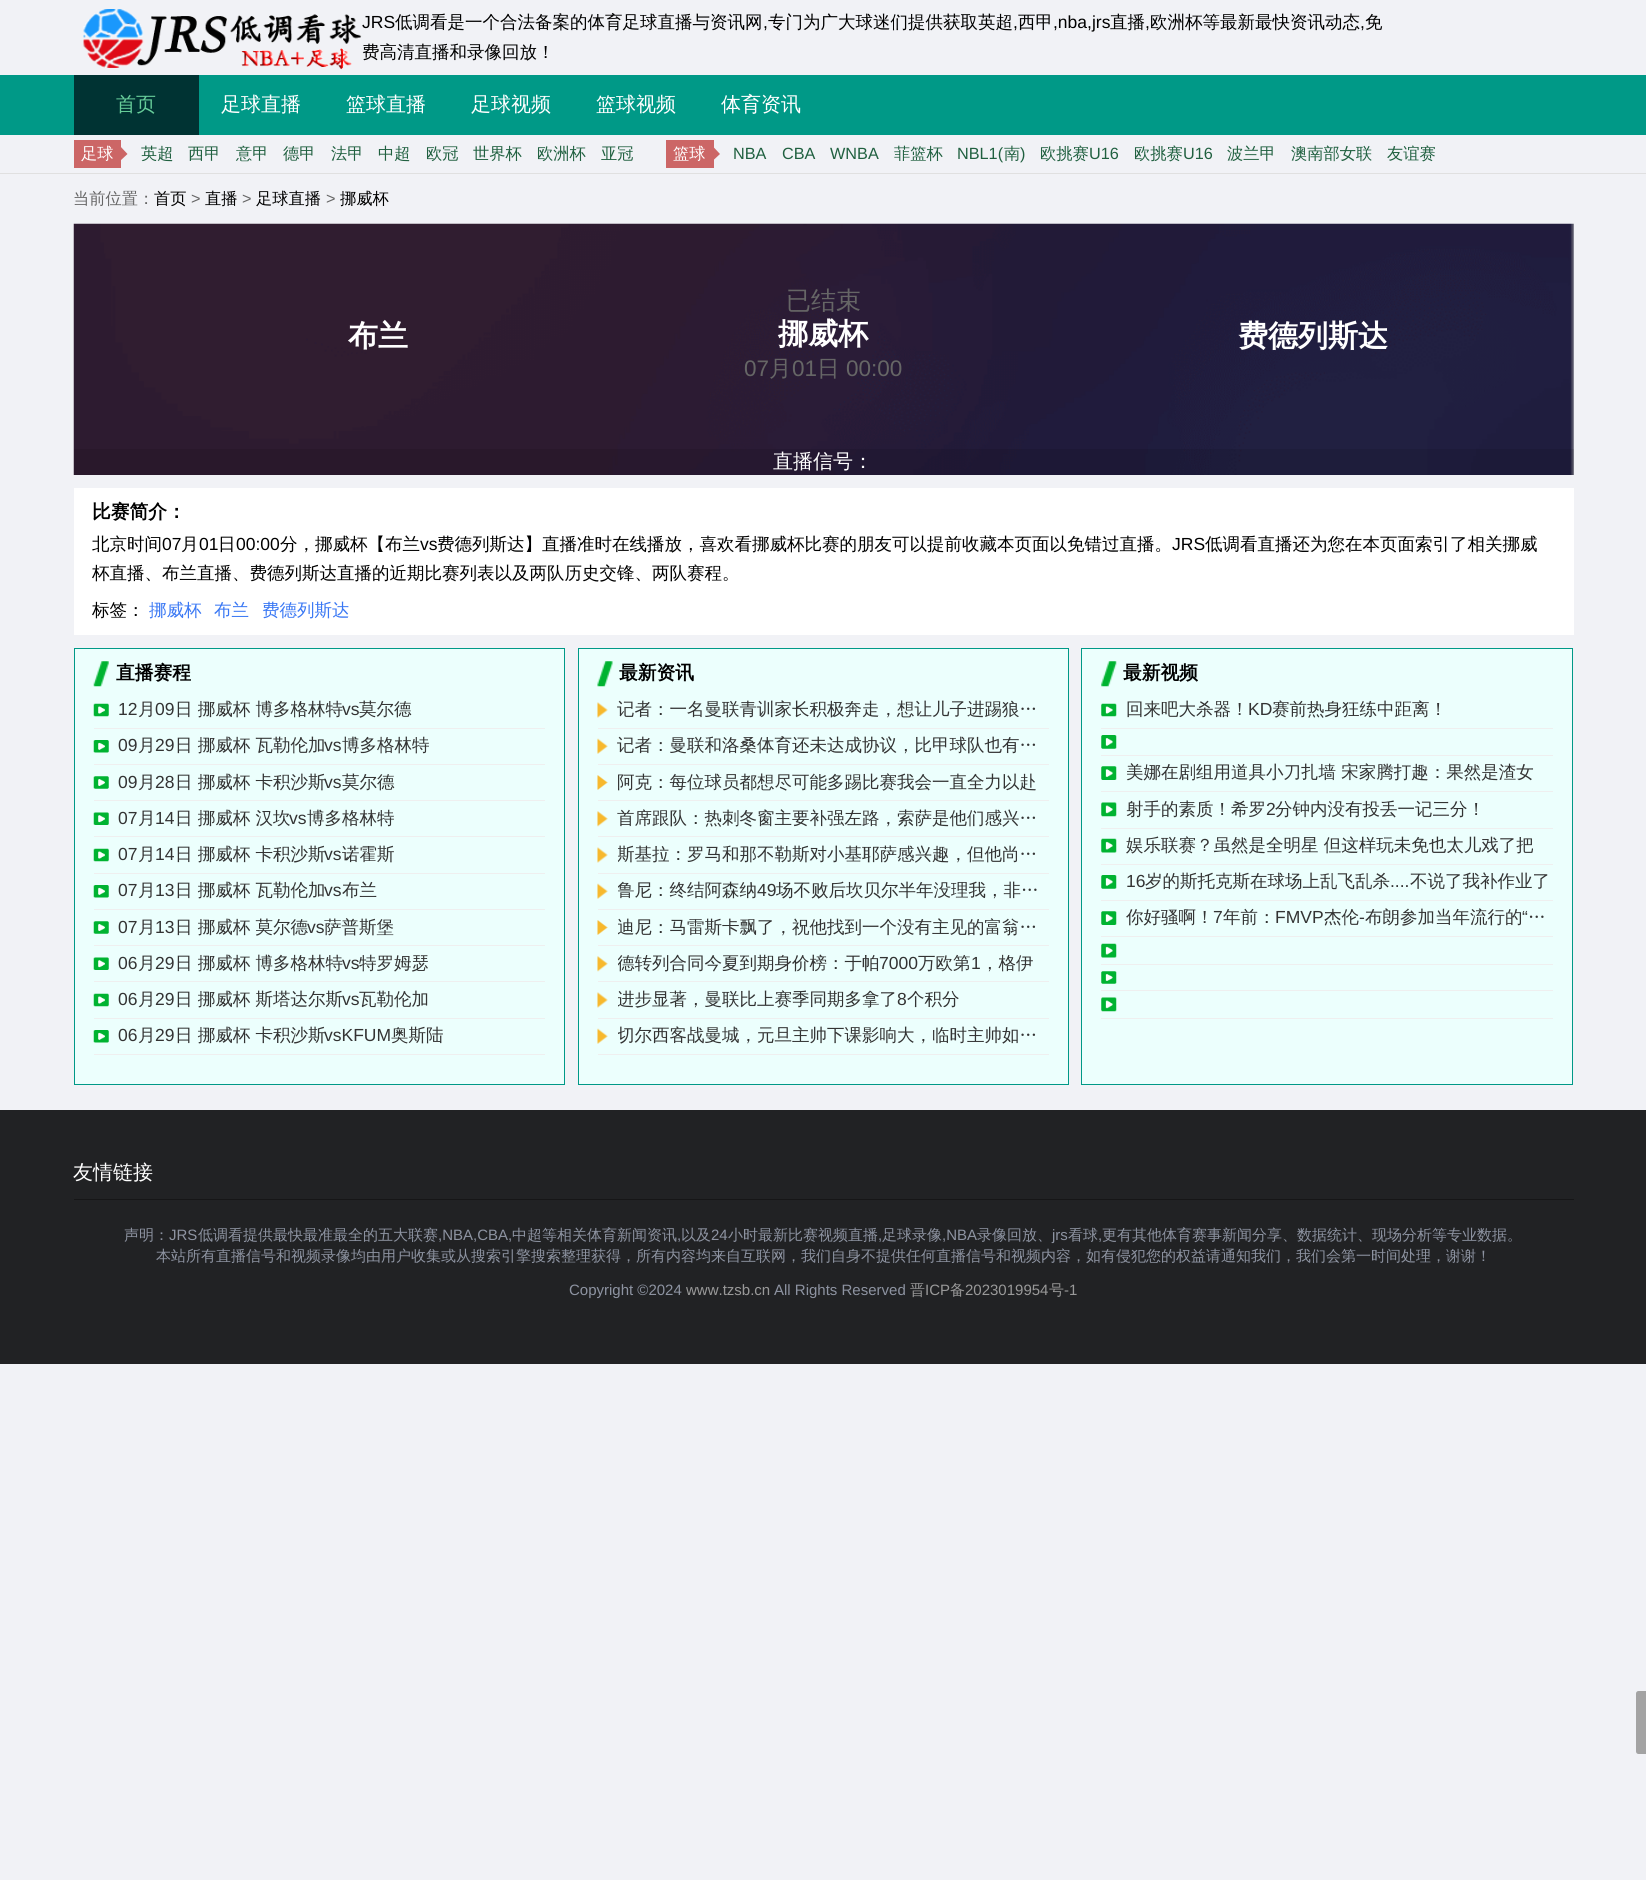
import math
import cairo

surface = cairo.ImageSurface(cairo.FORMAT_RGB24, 1646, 1880)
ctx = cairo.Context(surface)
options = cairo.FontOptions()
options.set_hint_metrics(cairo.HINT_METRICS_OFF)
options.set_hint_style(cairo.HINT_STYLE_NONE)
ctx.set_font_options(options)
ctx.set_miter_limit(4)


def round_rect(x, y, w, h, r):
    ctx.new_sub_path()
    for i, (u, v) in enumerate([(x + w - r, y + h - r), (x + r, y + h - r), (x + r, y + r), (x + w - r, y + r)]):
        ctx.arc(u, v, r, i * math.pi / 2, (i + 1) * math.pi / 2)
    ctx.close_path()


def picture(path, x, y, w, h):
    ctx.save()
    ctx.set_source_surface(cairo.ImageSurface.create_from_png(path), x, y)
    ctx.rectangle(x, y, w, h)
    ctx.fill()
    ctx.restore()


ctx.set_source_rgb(0.945, 0.949, 0.961)
ctx.paint()
ctx.set_source_rgb(0.878, 0.878, 0.878)
ctx.rectangle(0, 173, 1646, 1)
ctx.fill()
picture("img1.png", 83, 9, 279, 61)
ctx.select_font_face("Liberation Sans")
ctx.set_font_size(17.5)
ctx.set_source_rgb(0, 0, 0)
ctx.move_to(362, 28)
ctx.show_text("JRS")
ctx.select_font_face("WenQuanYi Zen Hei Medium")
ctx.move_to(395, 28)
ctx.show_text("低调看是一个合法备案的体育足球直播与资讯网")
ctx.select_font_face("Liberation Sans")
ctx.move_to(763, 28)
ctx.show_text(",")
ctx.select_font_face("WenQuanYi Zen Hei Medium")
ctx.move_to(768, 28)
ctx.show_text("专门为广大球迷们提供获取英超")
ctx.select_font_face("Liberation Sans")
ctx.move_to(1013, 28)
ctx.show_text(",")
ctx.select_font_face("WenQuanYi Zen Hei Medium")
ctx.move_to(1018, 28)
ctx.show_text("西甲")
ctx.select_font_face("Liberation Sans")
ctx.move_to(1053, 28)
ctx.show_text(",nba,jrs")
ctx.select_font_face("WenQuanYi Zen Hei Medium")
ctx.move_to(1110, 28)
ctx.show_text("直播")
ctx.select_font_face("Liberation Sans")
ctx.move_to(1145, 28)
ctx.show_text(",")
ctx.select_font_face("WenQuanYi Zen Hei Medium")
ctx.move_to(1150, 28)
ctx.show_text("欧洲杯等最新最快资讯动态")
ctx.select_font_face("Liberation Sans")
ctx.move_to(1360, 28)
ctx.show_text(",")
ctx.select_font_face("WenQuanYi Zen Hei Medium")
ctx.move_to(1365, 28)
ctx.show_text("免")
ctx.move_to(362, 58)
ctx.show_text("费高清直播和录像回放！")
ctx.set_source_rgb(0, 0.6, 0.529)
ctx.rectangle(0, 75, 1646, 60)
ctx.fill()
ctx.set_source_rgb(0, 0.2, 0.2)
ctx.rectangle(74, 75, 125, 60)
ctx.fill()
ctx.set_font_size(20)
ctx.set_source_rgb(0.4, 0.8, 0.6)
ctx.move_to(116, 111)
ctx.show_text("首页")
ctx.set_source_rgb(1, 1, 1)
ctx.move_to(221, 111)
ctx.show_text("足球直播")
ctx.move_to(346, 111)
ctx.show_text("篮球直播")
ctx.move_to(471, 111)
ctx.show_text("足球视频")
ctx.move_to(596, 111)
ctx.show_text("篮球视频")
ctx.move_to(721, 111)
ctx.show_text("体育资讯")
ctx.set_source_rgb(0.8, 0.4, 0.4)
ctx.rectangle(74, 140, 47, 28)
ctx.fill()
ctx.set_font_size(16.25)
ctx.set_source_rgb(1, 1, 1)
ctx.move_to(81, 159)
ctx.show_text("足球")
ctx.set_source_rgb(0.8, 0.4, 0.4)
ctx.new_path()
ctx.move_to(120, 161)
ctx.line_to(120, 146)
ctx.line_to(127.5, 154)
ctx.close_path()
ctx.fill()
ctx.set_source_rgb(0.125, 0.376, 0.251)
ctx.move_to(141, 159)
ctx.show_text("英超")
ctx.move_to(188, 159)
ctx.show_text("西甲")
ctx.move_to(236, 159)
ctx.show_text("意甲")
ctx.move_to(283, 159)
ctx.show_text("德甲")
ctx.move_to(331, 159)
ctx.show_text("法甲")
ctx.move_to(378, 159)
ctx.show_text("中超")
ctx.move_to(426, 159)
ctx.show_text("欧冠")
ctx.move_to(473, 159)
ctx.show_text("世界杯")
ctx.move_to(537, 159)
ctx.show_text("欧洲杯")
ctx.move_to(601, 159)
ctx.show_text("亚冠")
ctx.set_source_rgb(0.8, 0.4, 0.4)
ctx.rectangle(666, 140, 48, 28)
ctx.fill()
ctx.set_source_rgb(1, 1, 1)
ctx.move_to(673, 159)
ctx.show_text("篮球")
ctx.set_source_rgb(0.8, 0.4, 0.4)
ctx.new_path()
ctx.move_to(712.5, 161)
ctx.line_to(712.5, 146)
ctx.line_to(720, 154)
ctx.close_path()
ctx.fill()
ctx.select_font_face("Liberation Sans")
ctx.set_source_rgb(0.125, 0.376, 0.251)
ctx.move_to(733, 159)
ctx.show_text("NBA")
ctx.move_to(782, 159)
ctx.show_text("CBA")
ctx.move_to(830, 159)
ctx.show_text("WNBA")
ctx.select_font_face("WenQuanYi Zen Hei Medium")
ctx.move_to(894, 159)
ctx.show_text("菲篮杯")
ctx.select_font_face("Liberation Sans")
ctx.move_to(957, 159)
ctx.show_text("NBL1(")
ctx.select_font_face("WenQuanYi Zen Hei Medium")
ctx.move_to(1004, 159)
ctx.show_text("南")
ctx.select_font_face("Liberation Sans")
ctx.move_to(1020, 159)
ctx.show_text(")")
ctx.select_font_face("WenQuanYi Zen Hei Medium")
ctx.move_to(1040, 159)
ctx.show_text("欧挑赛")
ctx.select_font_face("Liberation Sans")
ctx.move_to(1089, 159)
ctx.show_text("U16")
ctx.select_font_face("WenQuanYi Zen Hei Medium")
ctx.move_to(1134, 159)
ctx.show_text("欧挑赛")
ctx.select_font_face("Liberation Sans")
ctx.move_to(1183, 159)
ctx.show_text("U16")
ctx.select_font_face("WenQuanYi Zen Hei Medium")
ctx.move_to(1227, 159)
ctx.show_text("波兰甲")
ctx.move_to(1291, 159)
ctx.show_text("澳南部女联")
ctx.move_to(1387, 159)
ctx.show_text("友谊赛")
ctx.set_source_rgb(0.4, 0.4, 0.4)
ctx.move_to(73, 204)
ctx.show_text("当前位置：")
ctx.set_source_rgb(0, 0, 0)
ctx.move_to(154, 204)
ctx.show_text("首页")
ctx.select_font_face("Liberation Sans")
ctx.set_source_rgb(0.4, 0.4, 0.4)
ctx.move_to(191, 204)
ctx.show_text(">")
ctx.select_font_face("WenQuanYi Zen Hei Medium")
ctx.set_source_rgb(0, 0, 0)
ctx.move_to(205, 204)
ctx.show_text("直播")
ctx.select_font_face("Liberation Sans")
ctx.set_source_rgb(0.4, 0.4, 0.4)
ctx.move_to(242, 204)
ctx.show_text(">")
ctx.select_font_face("WenQuanYi Zen Hei Medium")
ctx.set_source_rgb(0, 0, 0)
ctx.move_to(256, 204)
ctx.show_text("足球直播")
ctx.select_font_face("Liberation Sans")
ctx.set_source_rgb(0.4, 0.4, 0.4)
ctx.move_to(326, 204)
ctx.show_text(">")
ctx.select_font_face("WenQuanYi Zen Hei Medium")
ctx.set_source_rgb(0, 0, 0)
ctx.move_to(340, 204)
ctx.show_text("挪威杯")
picture("img2.png", 73, 223, 1501, 252)
ctx.select_font_face("WenQuanYi Zen Hei", cairo.FONT_SLANT_NORMAL, cairo.FONT_WEIGHT_BOLD)
ctx.set_font_size(30)
ctx.set_source_rgb(1, 1, 1)
ctx.move_to(348, 346)
ctx.show_text("布兰")
ctx.select_font_face("WenQuanYi Zen Hei Medium")
ctx.set_font_size(25)
ctx.set_source_rgb(0.4, 0.4, 0.4)
ctx.move_to(786, 309)
ctx.show_text("已结束")
ctx.select_font_face("WenQuanYi Zen Hei", cairo.FONT_SLANT_NORMAL, cairo.FONT_WEIGHT_BOLD)
ctx.set_font_size(30)
ctx.set_source_rgb(1, 1, 1)
ctx.move_to(778, 344)
ctx.show_text("挪威杯")
ctx.select_font_face("Liberation Sans")
ctx.set_font_size(22.5)
ctx.set_source_rgb(0.4, 0.4, 0.4)
ctx.move_to(744, 376)
ctx.show_text("07")
ctx.select_font_face("WenQuanYi Zen Hei Medium")
ctx.move_to(769, 376)
ctx.show_text("月")
ctx.select_font_face("Liberation Sans")
ctx.move_to(792, 376)
ctx.show_text("01")
ctx.select_font_face("WenQuanYi Zen Hei Medium")
ctx.move_to(817, 376)
ctx.show_text("日")
ctx.select_font_face("Liberation Sans")
ctx.move_to(846, 376)
ctx.show_text("00:00")
ctx.select_font_face("WenQuanYi Zen Hei", cairo.FONT_SLANT_NORMAL, cairo.FONT_WEIGHT_BOLD)
ctx.set_font_size(30)
ctx.set_source_rgb(1, 1, 1)
ctx.move_to(1238, 346)
ctx.show_text("费德列斯达")
ctx.set_source_rgba(0, 0, 0, 0.1)
ctx.rectangle(74, 449, 1500, 26)
ctx.fill()
ctx.select_font_face("WenQuanYi Zen Hei Medium")
ctx.set_font_size(20)
ctx.set_source_rgb(1, 1, 1)
ctx.move_to(773, 468)
ctx.show_text("直播信号：")
ctx.rectangle(74, 488, 1500, 147)
ctx.fill()
ctx.select_font_face("WenQuanYi Zen Hei", cairo.FONT_SLANT_NORMAL, cairo.FONT_WEIGHT_BOLD)
ctx.set_font_size(18.75)
ctx.set_source_rgb(0, 0, 0)
ctx.move_to(92, 518)
ctx.show_text("比赛简介：")
ctx.select_font_face("WenQuanYi Zen Hei Medium")
ctx.set_font_size(17.5)
ctx.move_to(92, 550)
ctx.show_text("北京时间")
ctx.select_font_face("Liberation Sans")
ctx.move_to(162, 550)
ctx.show_text("07")
ctx.select_font_face("WenQuanYi Zen Hei Medium")
ctx.move_to(181, 550)
ctx.show_text("月")
ctx.select_font_face("Liberation Sans")
ctx.move_to(199, 550)
ctx.show_text("01")
ctx.select_font_face("WenQuanYi Zen Hei Medium")
ctx.move_to(218, 550)
ctx.show_text("日")
ctx.select_font_face("Liberation Sans")
ctx.move_to(236, 550)
ctx.show_text("00:00")
ctx.select_font_face("WenQuanYi Zen Hei Medium")
ctx.move_to(280, 550)
ctx.show_text("分，挪威杯【布兰")
ctx.select_font_face("Liberation Sans")
ctx.move_to(420, 550)
ctx.show_text("vs")
ctx.select_font_face("WenQuanYi Zen Hei Medium")
ctx.move_to(437, 550)
ctx.show_text("费德列斯达】直播准时在线播放，喜欢看挪威杯比赛的朋友可以提前收藏本页面以免错过直播。")
ctx.select_font_face("Liberation Sans")
ctx.move_to(1172, 550)
ctx.show_text("JRS")
ctx.select_font_face("WenQuanYi Zen Hei Medium")
ctx.move_to(1205, 550)
ctx.show_text("低调看直播还为您在本页面索引了相关挪威")
ctx.move_to(92, 579)
ctx.show_text("杯直播、布兰直播、费德列斯达直播的近期比赛列表以及两队历史交锋、两队赛程。")
ctx.move_to(92, 616)
ctx.show_text("标签：")
ctx.set_source_rgb(0.227, 0.471, 0.957)
ctx.move_to(149, 616)
ctx.show_text("挪威杯")
ctx.move_to(214, 616)
ctx.show_text("布兰")
ctx.move_to(262, 616)
ctx.show_text("费德列斯达")
ctx.set_source_rgb(0.922, 1, 0.992)
ctx.rectangle(74.5, 648.5, 490, 436)
ctx.fill_preserve()
ctx.set_source_rgb(0, 0.6, 0.529)
ctx.set_line_width(1)
ctx.stroke()
picture("img3.png", 93, 661, 16, 26)
ctx.select_font_face("WenQuanYi Zen Hei", cairo.FONT_SLANT_NORMAL, cairo.FONT_WEIGHT_BOLD)
ctx.set_font_size(18.75)
ctx.set_source_rgb(0, 0, 0)
ctx.move_to(116, 679)
ctx.show_text("直播赛程")
ctx.set_source_rgb(0.937, 0.937, 0.937)
ctx.rectangle(94, 728, 451, 1)
ctx.fill()
picture("img4.png", 93, 703, 16, 14)
ctx.select_font_face("Liberation Sans")
ctx.set_font_size(17.5)
ctx.set_source_rgb(0.2, 0.2, 0.2)
ctx.move_to(118, 715)
ctx.show_text("12")
ctx.select_font_face("WenQuanYi Zen Hei Medium")
ctx.move_to(138, 715)
ctx.show_text("月")
ctx.select_font_face("Liberation Sans")
ctx.move_to(155, 715)
ctx.show_text("09")
ctx.select_font_face("WenQuanYi Zen Hei Medium")
ctx.move_to(175, 715)
ctx.show_text("日 挪威杯 博多格林特")
ctx.select_font_face("Liberation Sans")
ctx.move_to(342, 715)
ctx.show_text("vs")
ctx.select_font_face("WenQuanYi Zen Hei Medium")
ctx.move_to(359, 715)
ctx.show_text("莫尔德")
ctx.set_source_rgb(0.937, 0.937, 0.937)
ctx.rectangle(94, 764, 451, 1)
ctx.fill()
picture("img5.png", 93, 740, 16, 13)
ctx.select_font_face("Liberation Sans")
ctx.set_source_rgb(0.2, 0.2, 0.2)
ctx.move_to(118, 751)
ctx.show_text("09")
ctx.select_font_face("WenQuanYi Zen Hei Medium")
ctx.move_to(138, 751)
ctx.show_text("月")
ctx.select_font_face("Liberation Sans")
ctx.move_to(155, 751)
ctx.show_text("29")
ctx.select_font_face("WenQuanYi Zen Hei Medium")
ctx.move_to(175, 751)
ctx.show_text("日 挪威杯 瓦勒伦加")
ctx.select_font_face("Liberation Sans")
ctx.move_to(324, 751)
ctx.show_text("vs")
ctx.select_font_face("WenQuanYi Zen Hei Medium")
ctx.move_to(342, 751)
ctx.show_text("博多格林特")
ctx.set_source_rgb(0.937, 0.937, 0.937)
ctx.rectangle(94, 800, 451, 1)
ctx.fill()
picture("img6.png", 93, 776, 16, 13)
ctx.select_font_face("Liberation Sans")
ctx.set_source_rgb(0.2, 0.2, 0.2)
ctx.move_to(118, 788)
ctx.show_text("09")
ctx.select_font_face("WenQuanYi Zen Hei Medium")
ctx.move_to(138, 788)
ctx.show_text("月")
ctx.select_font_face("Liberation Sans")
ctx.move_to(155, 788)
ctx.show_text("28")
ctx.select_font_face("WenQuanYi Zen Hei Medium")
ctx.move_to(175, 788)
ctx.show_text("日 挪威杯 卡积沙斯")
ctx.select_font_face("Liberation Sans")
ctx.move_to(324, 788)
ctx.show_text("vs")
ctx.select_font_face("WenQuanYi Zen Hei Medium")
ctx.move_to(342, 788)
ctx.show_text("莫尔德")
ctx.set_source_rgb(0.937, 0.937, 0.937)
ctx.rectangle(94, 836, 451, 1)
ctx.fill()
picture("img7.png", 93, 812, 16, 13)
ctx.select_font_face("Liberation Sans")
ctx.set_source_rgb(0.2, 0.2, 0.2)
ctx.move_to(118, 824)
ctx.show_text("07")
ctx.select_font_face("WenQuanYi Zen Hei Medium")
ctx.move_to(138, 824)
ctx.show_text("月")
ctx.select_font_face("Liberation Sans")
ctx.move_to(155, 824)
ctx.show_text("14")
ctx.select_font_face("WenQuanYi Zen Hei Medium")
ctx.move_to(175, 824)
ctx.show_text("日 挪威杯 汉坎")
ctx.select_font_face("Liberation Sans")
ctx.move_to(289, 824)
ctx.show_text("vs")
ctx.select_font_face("WenQuanYi Zen Hei Medium")
ctx.move_to(307, 824)
ctx.show_text("博多格林特")
ctx.set_source_rgb(0.937, 0.937, 0.937)
ctx.rectangle(94, 873, 451, 1)
ctx.fill()
picture("img4.png", 93, 848, 16, 14)
ctx.select_font_face("Liberation Sans")
ctx.set_source_rgb(0.2, 0.2, 0.2)
ctx.move_to(118, 860)
ctx.show_text("07")
ctx.select_font_face("WenQuanYi Zen Hei Medium")
ctx.move_to(138, 860)
ctx.show_text("月")
ctx.select_font_face("Liberation Sans")
ctx.move_to(155, 860)
ctx.show_text("14")
ctx.select_font_face("WenQuanYi Zen Hei Medium")
ctx.move_to(175, 860)
ctx.show_text("日 挪威杯 卡积沙斯")
ctx.select_font_face("Liberation Sans")
ctx.move_to(324, 860)
ctx.show_text("vs")
ctx.select_font_face("WenQuanYi Zen Hei Medium")
ctx.move_to(342, 860)
ctx.show_text("诺霍斯")
ctx.set_source_rgb(0.937, 0.937, 0.937)
ctx.rectangle(94, 909, 451, 1)
ctx.fill()
picture("img5.png", 93, 885, 16, 13)
ctx.select_font_face("Liberation Sans")
ctx.set_source_rgb(0.2, 0.2, 0.2)
ctx.move_to(118, 896)
ctx.show_text("07")
ctx.select_font_face("WenQuanYi Zen Hei Medium")
ctx.move_to(138, 896)
ctx.show_text("月")
ctx.select_font_face("Liberation Sans")
ctx.move_to(155, 896)
ctx.show_text("13")
ctx.select_font_face("WenQuanYi Zen Hei Medium")
ctx.move_to(175, 896)
ctx.show_text("日 挪威杯 瓦勒伦加")
ctx.select_font_face("Liberation Sans")
ctx.move_to(324, 896)
ctx.show_text("vs")
ctx.select_font_face("WenQuanYi Zen Hei Medium")
ctx.move_to(342, 896)
ctx.show_text("布兰")
ctx.set_source_rgb(0.937, 0.937, 0.937)
ctx.rectangle(94, 945, 451, 1)
ctx.fill()
picture("img6.png", 93, 921, 16, 13)
ctx.select_font_face("Liberation Sans")
ctx.set_source_rgb(0.2, 0.2, 0.2)
ctx.move_to(118, 933)
ctx.show_text("07")
ctx.select_font_face("WenQuanYi Zen Hei Medium")
ctx.move_to(138, 933)
ctx.show_text("月")
ctx.select_font_face("Liberation Sans")
ctx.move_to(155, 933)
ctx.show_text("13")
ctx.select_font_face("WenQuanYi Zen Hei Medium")
ctx.move_to(175, 933)
ctx.show_text("日 挪威杯 莫尔德")
ctx.select_font_face("Liberation Sans")
ctx.move_to(307, 933)
ctx.show_text("vs")
ctx.select_font_face("WenQuanYi Zen Hei Medium")
ctx.move_to(324, 933)
ctx.show_text("萨普斯堡")
ctx.set_source_rgb(0.937, 0.937, 0.937)
ctx.rectangle(94, 981, 451, 1)
ctx.fill()
picture("img7.png", 93, 957, 16, 13)
ctx.select_font_face("Liberation Sans")
ctx.set_source_rgb(0.2, 0.2, 0.2)
ctx.move_to(118, 969)
ctx.show_text("06")
ctx.select_font_face("WenQuanYi Zen Hei Medium")
ctx.move_to(138, 969)
ctx.show_text("月")
ctx.select_font_face("Liberation Sans")
ctx.move_to(155, 969)
ctx.show_text("29")
ctx.select_font_face("WenQuanYi Zen Hei Medium")
ctx.move_to(175, 969)
ctx.show_text("日 挪威杯 博多格林特")
ctx.select_font_face("Liberation Sans")
ctx.move_to(342, 969)
ctx.show_text("vs")
ctx.select_font_face("WenQuanYi Zen Hei Medium")
ctx.move_to(359, 969)
ctx.show_text("特罗姆瑟")
ctx.set_source_rgb(0.937, 0.937, 0.937)
ctx.rectangle(94, 1018, 451, 1)
ctx.fill()
picture("img4.png", 93, 993, 16, 14)
ctx.select_font_face("Liberation Sans")
ctx.set_source_rgb(0.2, 0.2, 0.2)
ctx.move_to(118, 1005)
ctx.show_text("06")
ctx.select_font_face("WenQuanYi Zen Hei Medium")
ctx.move_to(138, 1005)
ctx.show_text("月")
ctx.select_font_face("Liberation Sans")
ctx.move_to(155, 1005)
ctx.show_text("29")
ctx.select_font_face("WenQuanYi Zen Hei Medium")
ctx.move_to(175, 1005)
ctx.show_text("日 挪威杯 斯塔达尔斯")
ctx.select_font_face("Liberation Sans")
ctx.move_to(342, 1005)
ctx.show_text("vs")
ctx.select_font_face("WenQuanYi Zen Hei Medium")
ctx.move_to(359, 1005)
ctx.show_text("瓦勒伦加")
ctx.set_source_rgb(0.937, 0.937, 0.937)
ctx.rectangle(94, 1054, 451, 1)
ctx.fill()
picture("img5.png", 93, 1030, 16, 13)
ctx.select_font_face("Liberation Sans")
ctx.set_source_rgb(0.2, 0.2, 0.2)
ctx.move_to(118, 1041)
ctx.show_text("06")
ctx.select_font_face("WenQuanYi Zen Hei Medium")
ctx.move_to(138, 1041)
ctx.show_text("月")
ctx.select_font_face("Liberation Sans")
ctx.move_to(155, 1041)
ctx.show_text("29")
ctx.select_font_face("WenQuanYi Zen Hei Medium")
ctx.move_to(175, 1041)
ctx.show_text("日 挪威杯 卡积沙斯")
ctx.select_font_face("Liberation Sans")
ctx.move_to(324, 1041)
ctx.show_text("vsKFUM")
ctx.select_font_face("WenQuanYi Zen Hei Medium")
ctx.move_to(391, 1041)
ctx.show_text("奥斯陆")
ctx.set_source_rgb(0.922, 1, 0.992)
ctx.rectangle(578.5, 648.5, 490, 436)
ctx.fill_preserve()
ctx.set_source_rgb(0, 0.6, 0.529)
ctx.stroke()
picture("img8.png", 597, 661, 16, 26)
ctx.select_font_face("WenQuanYi Zen Hei", cairo.FONT_SLANT_NORMAL, cairo.FONT_WEIGHT_BOLD)
ctx.set_font_size(18.75)
ctx.set_source_rgb(0, 0, 0)
ctx.move_to(619, 679)
ctx.show_text("最新资讯")
ctx.set_source_rgb(0.937, 0.937, 0.937)
ctx.rectangle(598, 728, 451, 1)
ctx.fill()
picture("img9.png", 597, 702, 11, 16)
ctx.select_font_face("WenQuanYi Zen Hei Medium")
ctx.set_font_size(17.5)
ctx.set_source_rgb(0.2, 0.2, 0.2)
ctx.move_to(617, 715)
ctx.show_text("记者：一名曼联青训家长积极奔走，想让儿子进踢狼…")
ctx.set_source_rgb(0.937, 0.937, 0.937)
ctx.rectangle(598, 764, 451, 1)
ctx.fill()
picture("img10.png", 597, 738, 11, 16)
ctx.set_source_rgb(0.2, 0.2, 0.2)
ctx.move_to(617, 751)
ctx.show_text("记者：曼联和洛桑体育还未达成协议，比甲球队也有…")
ctx.set_source_rgb(0.937, 0.937, 0.937)
ctx.rectangle(598, 800, 451, 1)
ctx.fill()
picture("img11.png", 597, 775, 11, 15)
ctx.save()
ctx.rectangle(618, 771, 420, 23)
ctx.clip()
ctx.set_source_rgb(0.2, 0.2, 0.2)
ctx.move_to(617, 788)
ctx.show_text("阿克：每位球员都想尽可能多踢比赛我会一直全力以赴")
ctx.restore()
ctx.rectangle(598, 836, 451, 1)
ctx.fill()
picture("img12.png", 597, 811, 11, 16)
ctx.set_source_rgb(0.2, 0.2, 0.2)
ctx.move_to(617, 824)
ctx.show_text("首席跟队：热刺冬窗主要补强左路，索萨是他们感兴…")
ctx.set_source_rgb(0.937, 0.937, 0.937)
ctx.rectangle(598, 873, 451, 1)
ctx.fill()
picture("img9.png", 597, 847, 11, 16)
ctx.save()
ctx.rectangle(618, 844, 431, 22)
ctx.clip()
ctx.set_source_rgb(0.2, 0.2, 0.2)
ctx.move_to(617, 860)
ctx.show_text("斯基拉：罗马和那不勒斯对小基耶萨感兴趣，但他尚…")
ctx.restore()
ctx.rectangle(598, 909, 451, 1)
ctx.fill()
picture("img10.png", 597, 883, 11, 16)
ctx.save()
ctx.rectangle(618, 880, 431, 23)
ctx.clip()
ctx.set_source_rgb(0.2, 0.2, 0.2)
ctx.move_to(617, 896)
ctx.show_text("鲁尼：终结阿森纳")
ctx.restore()
ctx.select_font_face("Liberation Sans")
ctx.set_source_rgb(0.2, 0.2, 0.2)
ctx.move_to(757, 896)
ctx.show_text("49")
ctx.select_font_face("WenQuanYi Zen Hei Medium")
ctx.move_to(776, 896)
ctx.show_text("场不败后坎贝尔半年没理我，非…")
ctx.set_source_rgb(0.937, 0.937, 0.937)
ctx.rectangle(598, 945, 451, 1)
ctx.fill()
picture("img11.png", 597, 920, 11, 15)
ctx.save()
ctx.rectangle(618, 916, 431, 23)
ctx.clip()
ctx.set_source_rgb(0.2, 0.2, 0.2)
ctx.move_to(617, 933)
ctx.show_text("迪尼：马雷斯卡飘了，祝他找到一个没有主见的富翁…")
ctx.restore()
ctx.rectangle(598, 981, 451, 1)
ctx.fill()
picture("img12.png", 597, 956, 11, 16)
ctx.save()
ctx.rectangle(618, 953, 431, 22)
ctx.clip()
ctx.set_source_rgb(0.2, 0.2, 0.2)
ctx.move_to(617, 969)
ctx.show_text("德转列合同今夏到期身价榜：于帕")
ctx.restore()
ctx.select_font_face("Liberation Sans")
ctx.set_source_rgb(0.2, 0.2, 0.2)
ctx.move_to(879, 969)
ctx.show_text("7000")
ctx.select_font_face("WenQuanYi Zen Hei Medium")
ctx.move_to(918, 969)
ctx.show_text("万欧第")
ctx.select_font_face("Liberation Sans")
ctx.move_to(971, 969)
ctx.show_text("1")
ctx.select_font_face("WenQuanYi Zen Hei Medium")
ctx.move_to(981, 969)
ctx.show_text("，格伊")
ctx.set_source_rgb(0.937, 0.937, 0.937)
ctx.rectangle(598, 1018, 451, 1)
ctx.fill()
picture("img9.png", 597, 992, 11, 16)
ctx.save()
ctx.rectangle(618, 989, 341, 22)
ctx.clip()
ctx.set_source_rgb(0.2, 0.2, 0.2)
ctx.move_to(617, 1005)
ctx.show_text("进步显著，曼联比上赛季同期多拿了")
ctx.restore()
ctx.select_font_face("Liberation Sans")
ctx.set_source_rgb(0.2, 0.2, 0.2)
ctx.move_to(897, 1005)
ctx.show_text("8")
ctx.select_font_face("WenQuanYi Zen Hei Medium")
ctx.move_to(907, 1005)
ctx.show_text("个积分")
ctx.set_source_rgb(0.937, 0.937, 0.937)
ctx.rectangle(598, 1054, 451, 1)
ctx.fill()
picture("img10.png", 597, 1028, 11, 16)
ctx.save()
ctx.rectangle(618, 1025, 431, 23)
ctx.clip()
ctx.set_source_rgb(0.2, 0.2, 0.2)
ctx.move_to(617, 1041)
ctx.show_text("切尔西客战曼城，元旦主帅下课影响大，临时主帅如…")
ctx.restore()
ctx.set_source_rgb(0.922, 1, 0.992)
ctx.rectangle(1081.5, 648.5, 491, 436)
ctx.fill_preserve()
ctx.set_source_rgb(0, 0.6, 0.529)
ctx.stroke()
picture("img13.png", 1101, 661, 16, 26)
ctx.select_font_face("WenQuanYi Zen Hei", cairo.FONT_SLANT_NORMAL, cairo.FONT_WEIGHT_BOLD)
ctx.set_font_size(18.75)
ctx.set_source_rgb(0, 0, 0)
ctx.move_to(1123, 679)
ctx.show_text("最新视频")
ctx.set_source_rgb(0.937, 0.937, 0.937)
ctx.rectangle(1101, 728, 452, 1)
ctx.fill()
picture("img14.png", 1101, 703, 16, 14)
ctx.select_font_face("WenQuanYi Zen Hei Medium")
ctx.set_font_size(17.5)
ctx.set_source_rgb(0.2, 0.2, 0.2)
ctx.move_to(1126, 715)
ctx.show_text("回来吧大杀器！")
ctx.select_font_face("Liberation Sans")
ctx.move_to(1248, 715)
ctx.show_text("KD")
ctx.select_font_face("WenQuanYi Zen Hei Medium")
ctx.move_to(1272, 715)
ctx.show_text("赛前热身狂练中距离！")
ctx.set_source_rgb(0.937, 0.937, 0.937)
ctx.rectangle(1101, 755, 452, 1)
ctx.fill()
picture("img15.png", 1101, 735, 16, 14)
ctx.rectangle(1101, 791, 452, 1)
ctx.fill()
picture("img16.png", 1101, 766, 16, 14)
ctx.set_source_rgb(0.2, 0.2, 0.2)
ctx.move_to(1126, 778)
ctx.show_text("美娜在剧组用道具小刀扎墙 宋家腾打趣：果然是渣女")
ctx.set_source_rgb(0.937, 0.937, 0.937)
ctx.rectangle(1101, 828, 452, 1)
ctx.fill()
picture("img17.png", 1101, 802, 16, 15)
ctx.set_source_rgb(0.2, 0.2, 0.2)
ctx.move_to(1126, 815)
ctx.show_text("射手的素质！希罗")
ctx.select_font_face("Liberation Sans")
ctx.move_to(1266, 815)
ctx.show_text("2")
ctx.select_font_face("WenQuanYi Zen Hei Medium")
ctx.move_to(1275, 815)
ctx.show_text("分钟内没有投丢一记三分！")
ctx.set_source_rgb(0.937, 0.937, 0.937)
ctx.rectangle(1101, 864, 452, 1)
ctx.fill()
picture("img18.png", 1101, 838, 16, 15)
ctx.set_source_rgb(0.2, 0.2, 0.2)
ctx.move_to(1126, 851)
ctx.show_text("娱乐联赛？虽然是全明星 但这样玩未免也太儿戏了把")
ctx.set_source_rgb(0.937, 0.937, 0.937)
ctx.rectangle(1101, 900, 452, 1)
ctx.fill()
picture("img15.png", 1101, 875, 16, 14)
ctx.select_font_face("Liberation Sans")
ctx.set_source_rgb(0.2, 0.2, 0.2)
ctx.move_to(1126, 887)
ctx.show_text("16")
ctx.select_font_face("WenQuanYi Zen Hei Medium")
ctx.move_to(1145, 887)
ctx.show_text("岁的斯托克斯在球场上乱飞乱杀")
ctx.select_font_face("Liberation Sans")
ctx.move_to(1390, 887)
ctx.show_text("....")
ctx.select_font_face("WenQuanYi Zen Hei Medium")
ctx.move_to(1410, 887)
ctx.show_text("不说了我补作业了")
ctx.set_source_rgb(0.937, 0.937, 0.937)
ctx.rectangle(1101, 936, 452, 1)
ctx.fill()
picture("img16.png", 1101, 911, 16, 14)
ctx.set_source_rgb(0.2, 0.2, 0.2)
ctx.move_to(1126, 923)
ctx.show_text("你好骚啊！")
ctx.select_font_face("Liberation Sans")
ctx.move_to(1213, 923)
ctx.show_text("7")
ctx.select_font_face("WenQuanYi Zen Hei Medium")
ctx.move_to(1223, 923)
ctx.show_text("年前：")
ctx.select_font_face("Liberation Sans")
ctx.move_to(1275, 923)
ctx.show_text("FMVP")
ctx.select_font_face("WenQuanYi Zen Hei Medium")
ctx.move_to(1324, 923)
ctx.show_text("杰伦")
ctx.move_to(1365, 923)
ctx.show_text("布朗参加当年流行的")
ctx.select_font_face("Liberation Sans")
ctx.move_to(1522, 923)
ctx.show_text("“")
ctx.select_font_face("WenQuanYi Zen Hei Medium")
ctx.move_to(1528, 923)
ctx.show_text("…")
ctx.select_font_face("Liberation Sans")
ctx.move_to(1359, 923)
ctx.show_text("-")
ctx.set_source_rgb(0.937, 0.937, 0.937)
ctx.rectangle(1101, 964, 452, 1)
ctx.fill()
picture("img18.png", 1101, 943, 16, 15)
ctx.rectangle(1101, 990, 452, 1)
ctx.fill()
picture("img19.png", 1101, 971, 16, 13)
ctx.rectangle(1101, 1018, 452, 1)
ctx.fill()
picture("img17.png", 1101, 997, 16, 15)
ctx.set_source_rgb(0.129, 0.133, 0.141)
ctx.rectangle(0, 1110, 1646, 254)
ctx.fill()
ctx.set_source_rgb(0.086, 0.086, 0.09)
ctx.rectangle(74, 1199, 1500, 1)
ctx.fill()
ctx.select_font_face("WenQuanYi Zen Hei Medium")
ctx.set_font_size(20)
ctx.set_source_rgb(1, 1, 1)
ctx.move_to(73, 1179)
ctx.show_text("友情链接")
ctx.set_font_size(15)
ctx.set_source_rgb(0.553, 0.576, 0.631)
ctx.move_to(124, 1240)
ctx.show_text("声明：")
ctx.select_font_face("Liberation Sans")
ctx.move_to(169, 1240)
ctx.show_text("JRS")
ctx.select_font_face("WenQuanYi Zen Hei Medium")
ctx.move_to(198, 1240)
ctx.show_text("低调看提供最快最准最全的五大联赛")
ctx.select_font_face("Liberation Sans")
ctx.move_to(438, 1240)
ctx.show_text(",NBA,CBA,")
ctx.select_font_face("WenQuanYi Zen Hei Medium")
ctx.move_to(512, 1240)
ctx.show_text("中超等相关体育新闻资讯")
ctx.select_font_face("Liberation Sans")
ctx.move_to(677, 1240)
ctx.show_text(",")
ctx.select_font_face("WenQuanYi Zen Hei Medium")
ctx.move_to(681, 1240)
ctx.show_text("以及")
ctx.select_font_face("Liberation Sans")
ctx.move_to(711, 1240)
ctx.show_text("24")
ctx.select_font_face("WenQuanYi Zen Hei Medium")
ctx.move_to(728, 1240)
ctx.show_text("小时最新比赛视频直播")
ctx.select_font_face("Liberation Sans")
ctx.move_to(878, 1240)
ctx.show_text(",")
ctx.select_font_face("WenQuanYi Zen Hei Medium")
ctx.move_to(882, 1240)
ctx.show_text("足球录像")
ctx.select_font_face("Liberation Sans")
ctx.move_to(942, 1240)
ctx.show_text(",NBA")
ctx.select_font_face("WenQuanYi Zen Hei Medium")
ctx.move_to(977, 1240)
ctx.show_text("录像回放、")
ctx.select_font_face("Liberation Sans")
ctx.move_to(1052, 1240)
ctx.show_text("jrs")
ctx.select_font_face("WenQuanYi Zen Hei Medium")
ctx.move_to(1068, 1240)
ctx.show_text("看球")
ctx.select_font_face("Liberation Sans")
ctx.move_to(1098, 1240)
ctx.show_text(",")
ctx.select_font_face("WenQuanYi Zen Hei Medium")
ctx.move_to(1102, 1240)
ctx.show_text("更有其他体育赛事新闻分享、数据统计、现场分析等专业数据。")
ctx.move_to(156, 1261)
ctx.show_text("本站所有直播信号和视频录像均由用户收集或从搜索引擎搜索整理获得，所有内容均来自互联网，我们自身不提供任何直播信号和视频内容，如有侵犯您的权益请通知我们，我们会第一时间处理，谢谢！")
ctx.select_font_face("Liberation Sans")
ctx.move_to(569, 1295)
ctx.show_text("Copyright ©2024")
ctx.set_source_rgb(0.6, 0.6, 0.6)
ctx.move_to(686, 1295)
ctx.show_text("www.tzsb.cn")
ctx.set_source_rgb(0.553, 0.576, 0.631)
ctx.move_to(774, 1295)
ctx.show_text("All Rights Reserved")
ctx.select_font_face("WenQuanYi Zen Hei Medium")
ctx.set_source_rgb(0.6, 0.6, 0.6)
ctx.move_to(910, 1295)
ctx.show_text("晋")
ctx.select_font_face("Liberation Sans")
ctx.move_to(925, 1295)
ctx.show_text("ICP")
ctx.select_font_face("WenQuanYi Zen Hei Medium")
ctx.move_to(950, 1295)
ctx.show_text("备")
ctx.select_font_face("Liberation Sans")
ctx.move_to(965, 1295)
ctx.show_text("2023019954")
ctx.select_font_face("WenQuanYi Zen Hei Medium")
ctx.move_to(1049, 1295)
ctx.show_text("号")
ctx.select_font_face("Liberation Sans")
ctx.move_to(1064, 1295)
ctx.show_text("-1")
ctx.set_source_rgb(0.639, 0.639, 0.639)
round_rect(1636, 1691, 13, 63, 2.5)
ctx.fill()
surface.write_to_png("page.png")
